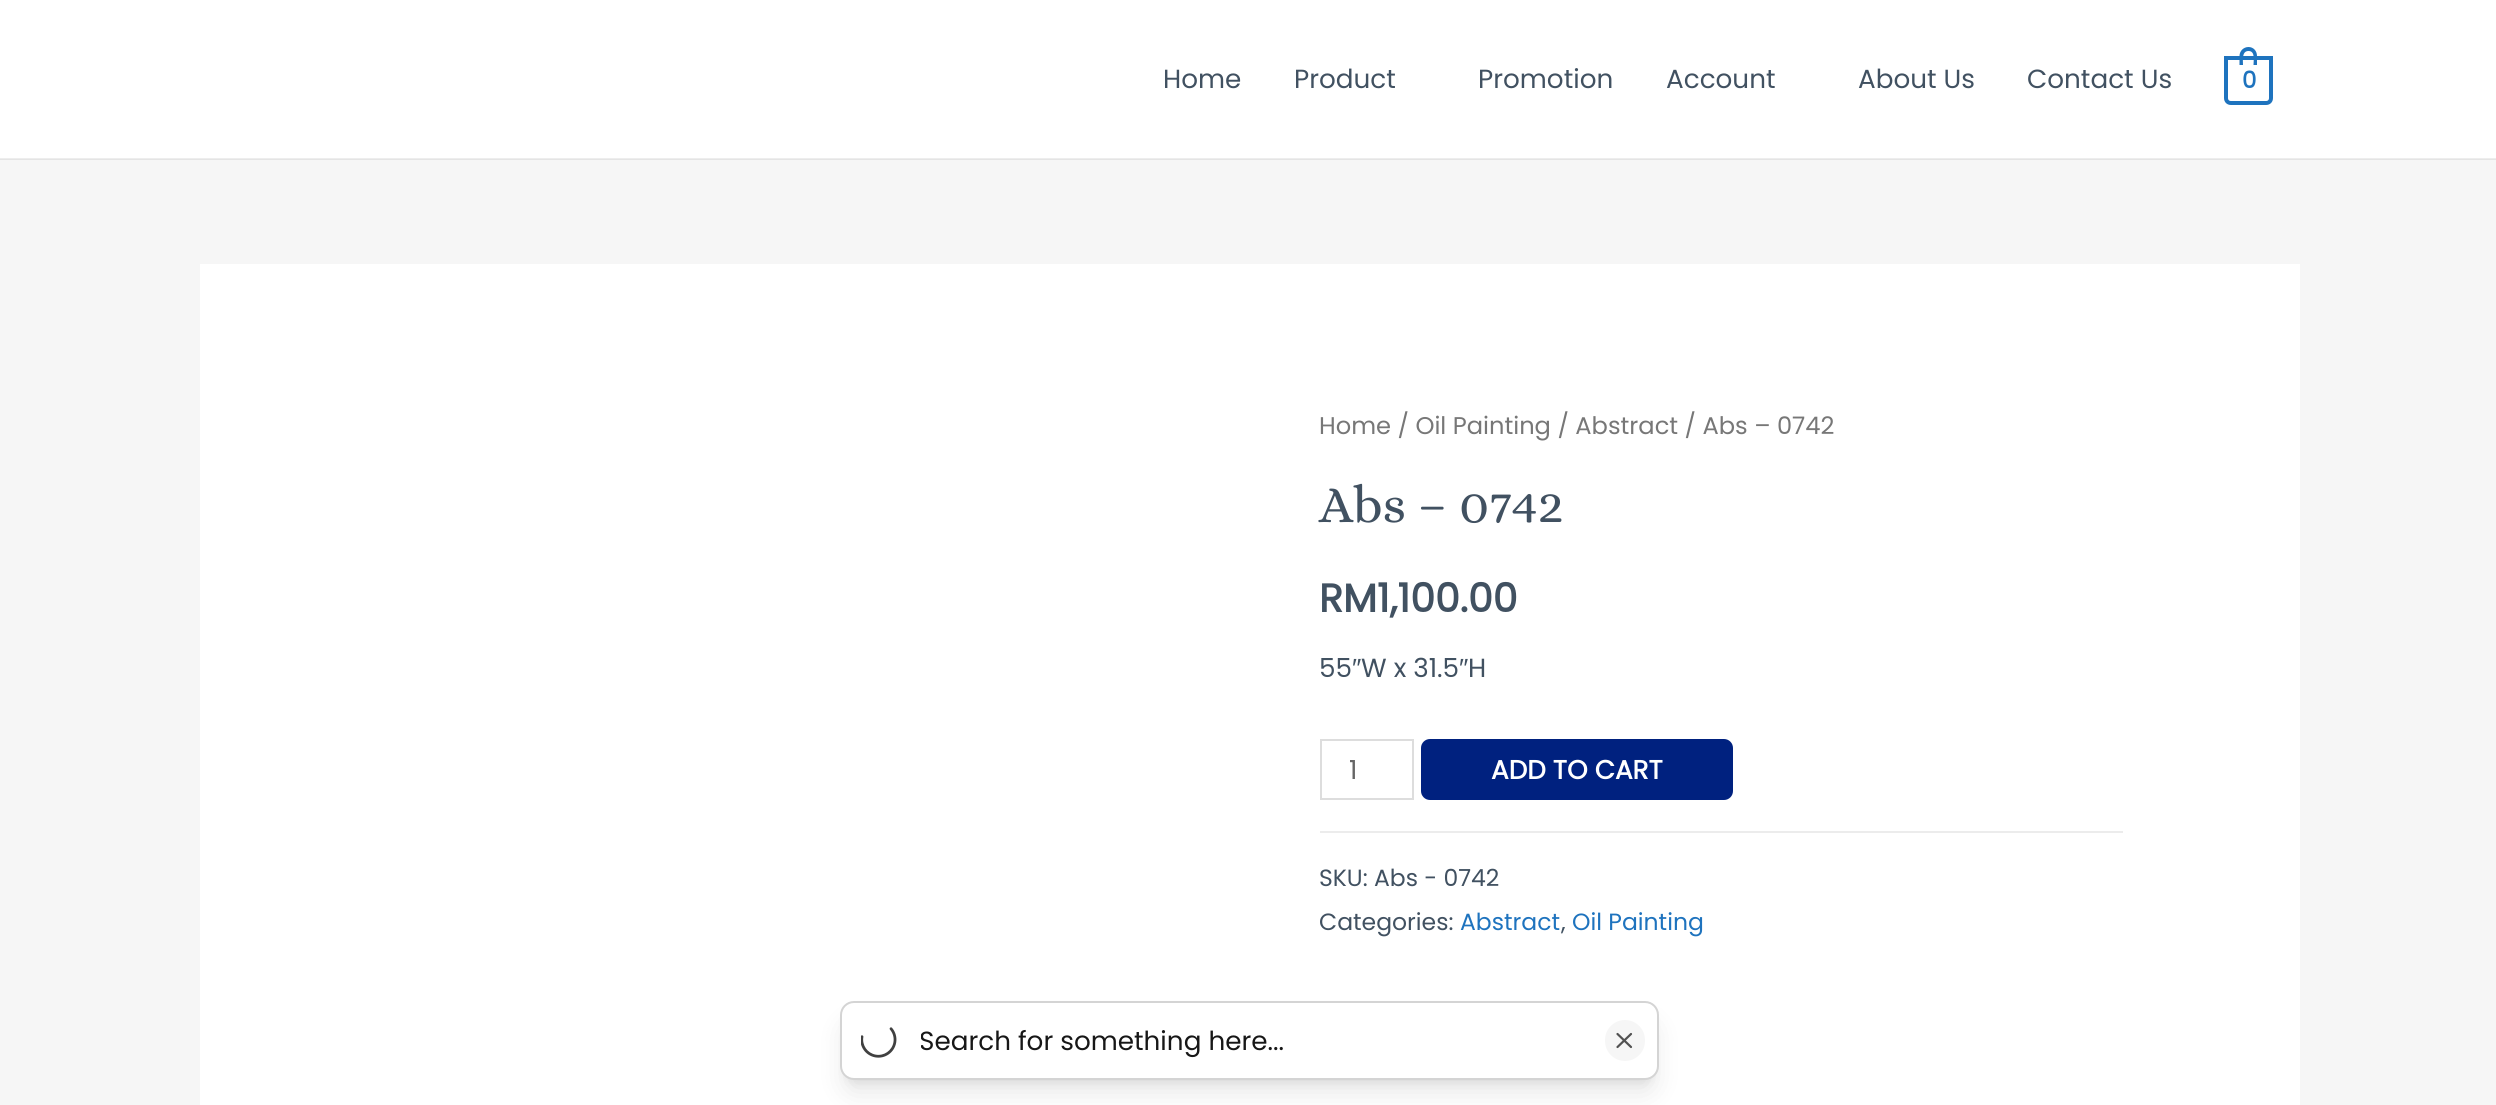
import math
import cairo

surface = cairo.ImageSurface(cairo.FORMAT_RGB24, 2496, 1105)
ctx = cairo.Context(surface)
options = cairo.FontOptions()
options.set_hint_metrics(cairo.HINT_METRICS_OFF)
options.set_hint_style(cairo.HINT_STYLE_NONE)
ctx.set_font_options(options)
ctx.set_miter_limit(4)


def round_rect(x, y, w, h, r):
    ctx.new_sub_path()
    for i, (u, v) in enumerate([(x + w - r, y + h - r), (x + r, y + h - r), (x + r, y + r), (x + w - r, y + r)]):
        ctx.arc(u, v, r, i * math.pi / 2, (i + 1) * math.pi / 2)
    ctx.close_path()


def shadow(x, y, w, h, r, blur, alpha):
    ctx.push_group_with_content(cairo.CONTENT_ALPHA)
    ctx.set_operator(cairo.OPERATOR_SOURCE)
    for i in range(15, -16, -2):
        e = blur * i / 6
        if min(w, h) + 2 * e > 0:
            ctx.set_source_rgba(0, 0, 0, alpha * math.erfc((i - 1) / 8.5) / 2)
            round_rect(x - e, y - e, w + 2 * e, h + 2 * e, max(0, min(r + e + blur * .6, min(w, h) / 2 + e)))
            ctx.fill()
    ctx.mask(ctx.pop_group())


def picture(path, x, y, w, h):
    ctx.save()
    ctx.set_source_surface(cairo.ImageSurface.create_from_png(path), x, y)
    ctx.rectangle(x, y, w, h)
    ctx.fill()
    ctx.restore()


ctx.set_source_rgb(0.961, 0.961, 0.961)
ctx.paint()
ctx.set_source_rgb(0.894, 0.894, 0.894)
ctx.rectangle(0, 159, 2496, 1)
ctx.fill()
ctx.set_source_rgb(1, 1, 1)
ctx.rectangle(0, 0, 2496, 158)
ctx.fill()
ctx.set_source_rgb(0.929, 0.929, 0.929)
ctx.rectangle(0, 158, 2496, 1)
ctx.fill()
ctx.select_font_face("Poppins")
ctx.set_font_size(26.25)
ctx.set_source_rgb(0.255, 0.318, 0.38)
ctx.move_to(1163, 88)
ctx.show_text("Home")
ctx.move_to(1294, 88)
ctx.show_text("Product")
ctx.move_to(1478, 88)
ctx.show_text("Promotion")
ctx.move_to(1666, 88)
ctx.show_text("Account")
ctx.move_to(1858, 88)
ctx.show_text("About Us")
ctx.move_to(2027, 88)
ctx.show_text("Contact Us")
ctx.new_path()
ctx.move_to(2226, 58)
ctx.line_to(2271, 58)
ctx.line_to(2271, 98)
ctx.curve_to(2271, 101, 2269, 103, 2266, 103)
ctx.line_to(2231, 103)
ctx.curve_to(2228, 103, 2226, 101, 2226, 98)
ctx.close_path()
ctx.set_source_rgb(0.118, 0.451, 0.745)
ctx.set_line_width(4)
ctx.stroke()
ctx.set_fill_rule(cairo.FILL_RULE_EVEN_ODD)
ctx.new_path()
ctx.move_to(2248.5, 47)
ctx.curve_to(2253.5, 47, 2257, 51, 2257, 56)
ctx.line_to(2257, 65)
ctx.line_to(2239.5, 65)
ctx.line_to(2239.5, 56)
ctx.curve_to(2239.5, 51, 2243.5, 47, 2248.5, 47)
ctx.close_path()
ctx.move_to(2248.5, 51)
ctx.curve_to(2255.5, 51, 2253.5, 60.5, 2253.5, 65)
ctx.line_to(2243, 65)
ctx.curve_to(2243, 60.5, 2241.5, 51, 2248.5, 51)
ctx.close_path()
ctx.fill()
ctx.select_font_face("Poppins", cairo.FONT_SLANT_NORMAL, cairo.FONT_WEIGHT_BOLD)
ctx.set_font_size(23)
ctx.move_to(2242, 88)
ctx.show_text("0")
ctx.set_source_rgb(1, 1, 1)
ctx.rectangle(200, 264, 2100, 841)
ctx.fill()
ctx.select_font_face("Poppins")
ctx.set_font_size(24.15)
ctx.set_source_rgb(0.467, 0.467, 0.467)
ctx.move_to(1319, 434)
ctx.show_text("Home / Oil Painting / Abstract / Abs – 0742")
ctx.select_font_face("Alice")
ctx.set_font_size(52.5)
ctx.set_source_rgb(0.255, 0.318, 0.38)
ctx.move_to(1319, 522)
ctx.show_text("Abs – 0742")
ctx.select_font_face("Poppins", cairo.FONT_SLANT_NORMAL, cairo.FONT_WEIGHT_BOLD)
ctx.set_font_size(39.5)
ctx.move_to(1319, 612)
ctx.show_text("RM1,100.00")
ctx.select_font_face("Poppins")
ctx.set_font_size(26.25)
ctx.move_to(1319, 677)
ctx.show_text("55")
ctx.select_font_face("Liberation Sans")
ctx.move_to(1352, 677)
ctx.show_text("″")
ctx.select_font_face("Poppins")
ctx.move_to(1361, 677)
ctx.show_text("W x 31.5")
ctx.select_font_face("Liberation Sans")
ctx.move_to(1459, 677)
ctx.show_text("″")
ctx.select_font_face("Poppins")
ctx.move_to(1468, 677)
ctx.show_text("H")
ctx.rectangle(1321, 740, 92, 59)
ctx.set_source_rgb(0.867, 0.867, 0.867)
ctx.set_line_width(2)
ctx.stroke()
ctx.set_source_rgb(0.4, 0.4, 0.4)
ctx.move_to(1349, 779)
ctx.show_text("1")
ctx.set_source_rgb(0, 0.129, 0.498)
round_rect(1421, 739, 312, 61, 9)
ctx.fill()
ctx.select_font_face("Poppins", cairo.FONT_SLANT_NORMAL, cairo.FONT_WEIGHT_BOLD)
ctx.set_source_rgb(1, 1, 1)
ctx.move_to(1491, 779)
ctx.show_text("ADD TO CART")
ctx.set_source_rgb(0.922, 0.922, 0.922)
ctx.rectangle(1320, 831, 803, 2)
ctx.fill()
ctx.select_font_face("Poppins")
ctx.set_font_size(23.5)
ctx.set_source_rgb(0.255, 0.318, 0.38)
ctx.move_to(1319, 886)
ctx.show_text("SKU: Abs - 0742")
ctx.move_to(1319, 930)
ctx.show_text("Categories:")
ctx.set_source_rgb(0.118, 0.451, 0.745)
ctx.move_to(1460, 930)
ctx.show_text("Abstract")
ctx.set_source_rgb(0.255, 0.318, 0.38)
ctx.move_to(1561, 930)
ctx.show_text(",")
ctx.set_source_rgb(0.118, 0.451, 0.745)
ctx.move_to(1572, 930)
ctx.show_text("Oil Painting")
ctx.set_source_rgb(0, 0, 0)
shadow(847, 1015, 805, 65, 7, 5, 0.1)
shadow(845, 1024, 809, 68, 9, 13, 0.1)
ctx.set_source_rgb(1, 1, 1)
round_rect(841, 1002, 817, 77, 13)
ctx.fill_preserve()
ctx.set_source_rgb(0.831, 0.831, 0.831)
ctx.stroke()
picture("img1.png", 861, 1027, 36, 31)
ctx.save()
ctx.set_fill_rule(cairo.FILL_RULE_WINDING)
ctx.rectangle(921, 1020, 672, 41)
ctx.clip()
ctx.set_font_size(26.25)
ctx.set_source_rgb(0.09, 0.09, 0.09)
ctx.move_to(919, 1050)
ctx.show_text("Search for something here...")
ctx.restore()
ctx.set_source_rgb(0.961, 0.961, 0.961)
round_rect(1605, 1020, 40, 41, 20)
ctx.fill()
ctx.new_path()
ctx.move_to(1631, 1034)
ctx.line_to(1617.5, 1047)
ctx.move_to(1617.5, 1034)
ctx.line_to(1631, 1047)
ctx.set_source_rgb(0.322, 0.322, 0.322)
ctx.set_line_width(2.2)
ctx.set_line_cap(cairo.LINE_CAP_ROUND)
ctx.set_line_join(cairo.LINE_JOIN_ROUND)
ctx.stroke()
surface.write_to_png("page.png")
